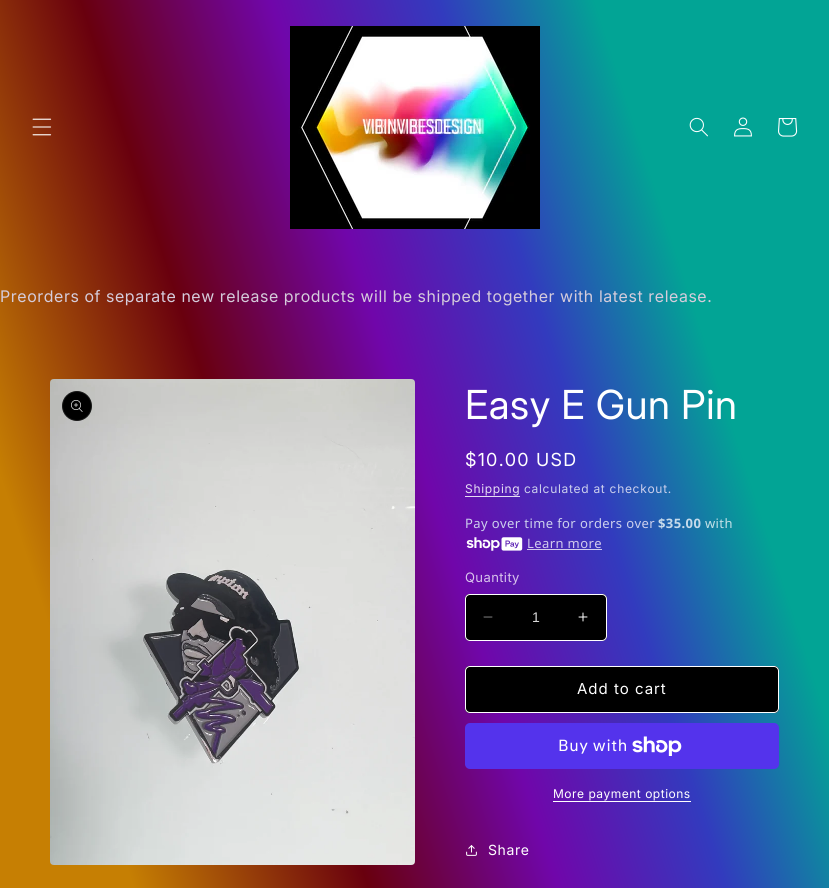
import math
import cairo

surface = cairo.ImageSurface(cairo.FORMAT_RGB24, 829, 888)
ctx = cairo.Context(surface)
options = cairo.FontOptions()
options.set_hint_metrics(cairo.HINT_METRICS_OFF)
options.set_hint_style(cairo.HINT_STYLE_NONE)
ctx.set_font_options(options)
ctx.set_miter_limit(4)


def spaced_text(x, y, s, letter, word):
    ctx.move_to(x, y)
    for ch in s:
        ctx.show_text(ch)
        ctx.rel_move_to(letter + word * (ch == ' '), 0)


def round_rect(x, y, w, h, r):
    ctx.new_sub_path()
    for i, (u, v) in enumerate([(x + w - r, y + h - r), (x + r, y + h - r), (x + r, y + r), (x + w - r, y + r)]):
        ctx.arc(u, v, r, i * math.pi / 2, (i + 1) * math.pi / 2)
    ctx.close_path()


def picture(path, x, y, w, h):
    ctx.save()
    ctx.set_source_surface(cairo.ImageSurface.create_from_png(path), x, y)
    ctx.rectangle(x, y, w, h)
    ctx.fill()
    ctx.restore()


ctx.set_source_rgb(1, 1, 1)
ctx.paint()
gradient = cairo.LinearGradient(-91, 608, 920, 280)
gradient.add_color_stop_rgba(0.12, 0.776, 0.498, 0.012, 1)
gradient.add_color_stop_rgba(0.33, 0.412, 0, 0.055, 1)
gradient.add_color_stop_rgba(0.5, 0.439, 0.024, 0.667, 1)
gradient.add_color_stop_rgba(0.65, 0.196, 0.231, 0.745, 1)
gradient.add_color_stop_rgba(0.79, 0.008, 0.643, 0.584, 1)
ctx.set_source(gradient)
ctx.rectangle(0, 0, 829, 888)
ctx.fill()
gradient = cairo.LinearGradient(-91, 608, 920, 280)
gradient.add_color_stop_rgba(0.12, 0.945, 0.875, 0.753, 1)
gradient.add_color_stop_rgba(0.33, 0.855, 0.749, 0.765, 1)
gradient.add_color_stop_rgba(0.5, 0.859, 0.757, 0.918, 1)
gradient.add_color_stop_rgba(0.65, 0.8, 0.808, 0.937, 1)
gradient.add_color_stop_rgba(0.79, 0.753, 0.91, 0.898, 1)
ctx.set_source(gradient)
ctx.rectangle(527, 549, 75, 1)
ctx.fill()
gradient = cairo.LinearGradient(-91, 608, 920, 280)
gradient.add_color_stop_rgba(0.12, 0.965, 0.925, 0.851, 1)
gradient.add_color_stop_rgba(0.33, 0.914, 0.851, 0.859, 1)
gradient.add_color_stop_rgba(0.5, 0.918, 0.855, 0.949, 1)
gradient.add_color_stop_rgba(0.65, 0.878, 0.886, 0.961, 1)
gradient.add_color_stop_rgba(0.79, 0.851, 0.945, 0.937, 1)
ctx.set_source(gradient)
ctx.rectangle(465, 496, 55, 1)
ctx.fill()
picture("img1.png", 32, 118, 20, 18)
picture("img2.png", 290, 26, 250, 203)
picture("img3.png", 689, 117, 19, 20)
picture("img4.png", 734, 117, 18, 20)
picture("img5.png", 778, 118, 20, 19)
ctx.select_font_face("Inter")
ctx.set_font_size(16)
ctx.set_source_rgb(0.835, 0.8, 0.859)
spaced_text(0, 302, "Preorders of separate new release products will be shipped together with latest release.", 0.6, 0)
picture("img6.png", 50, 379, 365, 486)
ctx.set_source_rgb(0, 0, 0)
ctx.arc(77, 406, 15, 0, 2 * math.pi)
ctx.fill()
ctx.arc(77, 406, 14.5, 0, 2 * math.pi)
ctx.set_source_rgba(1, 1, 1, 0.1)
ctx.set_line_width(1)
ctx.stroke()
picture("img7.png", 71, 400, 12, 12)
ctx.select_font_face("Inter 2")
ctx.set_font_size(40)
ctx.set_source_rgb(1, 1, 1)
spaced_text(465, 419, "Easy E Gun Pin", 0.6, 0)
ctx.select_font_face("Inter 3")
ctx.set_font_size(18)
spaced_text(465, 466, "$10.00 USD", 1.25, 0)
ctx.select_font_face("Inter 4")
ctx.set_font_size(12)
ctx.set_source_rgb(0.902, 0.867, 0.953)
spaced_text(465, 493, "Shipping", 0.7, 0)
ctx.set_source_rgb(0.8, 0.816, 0.929)
spaced_text(524, 493, "calculated at checkout.", 0.7, 0)
ctx.select_font_face("Noto Sans")
ctx.set_font_size(13)
spaced_text(465, 528, "Pay over time for orders over", 0.4, 0)
ctx.select_font_face("Noto Sans", cairo.FONT_SLANT_NORMAL, cairo.FONT_WEIGHT_BOLD)
ctx.set_source_rgb(0.776, 0.855, 0.918)
spaced_text(658, 528, "$35.00", 0.4, 0)
ctx.select_font_face("Noto Sans")
ctx.set_source_rgb(0.765, 0.882, 0.906)
spaced_text(705, 528, "with", 0.4, 0)
picture("img8.png", 466, 537, 57, 14)
ctx.set_source_rgb(0.816, 0.792, 0.929)
spaced_text(527, 548, "Learn more", 0.4, 0)
ctx.select_font_face("Inter 4")
ctx.set_source_rgb(0.847, 0.765, 0.922)
spaced_text(465, 582, "Quantity", 0.4, 0)
ctx.set_source_rgb(0, 0, 0)
round_rect(465, 594, 142, 47, 5)
ctx.fill()
picture("img9.png", 483, 616, 10, 2)
picture("img10.png", 578, 612, 10, 10)
round_rect(465.5, 594.5, 141, 46, 4.5)
ctx.set_source_rgb(1, 1, 1)
ctx.stroke()
ctx.select_font_face("Liberation Sans")
ctx.set_font_size(14)
ctx.set_source_rgb(0.851, 0.851, 0.851)
ctx.move_to(532, 622)
ctx.show_text("1")
ctx.set_source_rgb(0, 0, 0)
round_rect(465, 666, 314, 47, 5)
ctx.fill()
round_rect(465.5, 666.5, 313, 46, 4.5)
ctx.stroke()
round_rect(465.5, 666.5, 313, 46, 4.5)
ctx.set_source_rgb(1, 1, 1)
ctx.stroke()
ctx.select_font_face("Inter 4")
ctx.set_font_size(15)
spaced_text(577, 694, "Add to cart", 1, 0)
ctx.set_source_rgb(0.329, 0.2, 0.922)
round_rect(465, 723, 314, 46, 5)
ctx.fill()
ctx.select_font_face("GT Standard")
ctx.set_font_size(16)
ctx.set_source_rgb(1, 1, 1)
spaced_text(558, 751, "Buy with", 0.6, 0)
picture("img11.png", 632, 736, 50, 20)
ctx.select_font_face("Inter 4")
ctx.set_font_size(12)
spaced_text(553, 798, "More payment options", 0.5, 0)
ctx.rectangle(553, 801, 138, 1)
ctx.fill()
picture("img12.png", 466, 845, 11, 11)
ctx.set_font_size(14)
spaced_text(488, 855, "Share", 0.6, 0)
surface.write_to_png("page.png")
